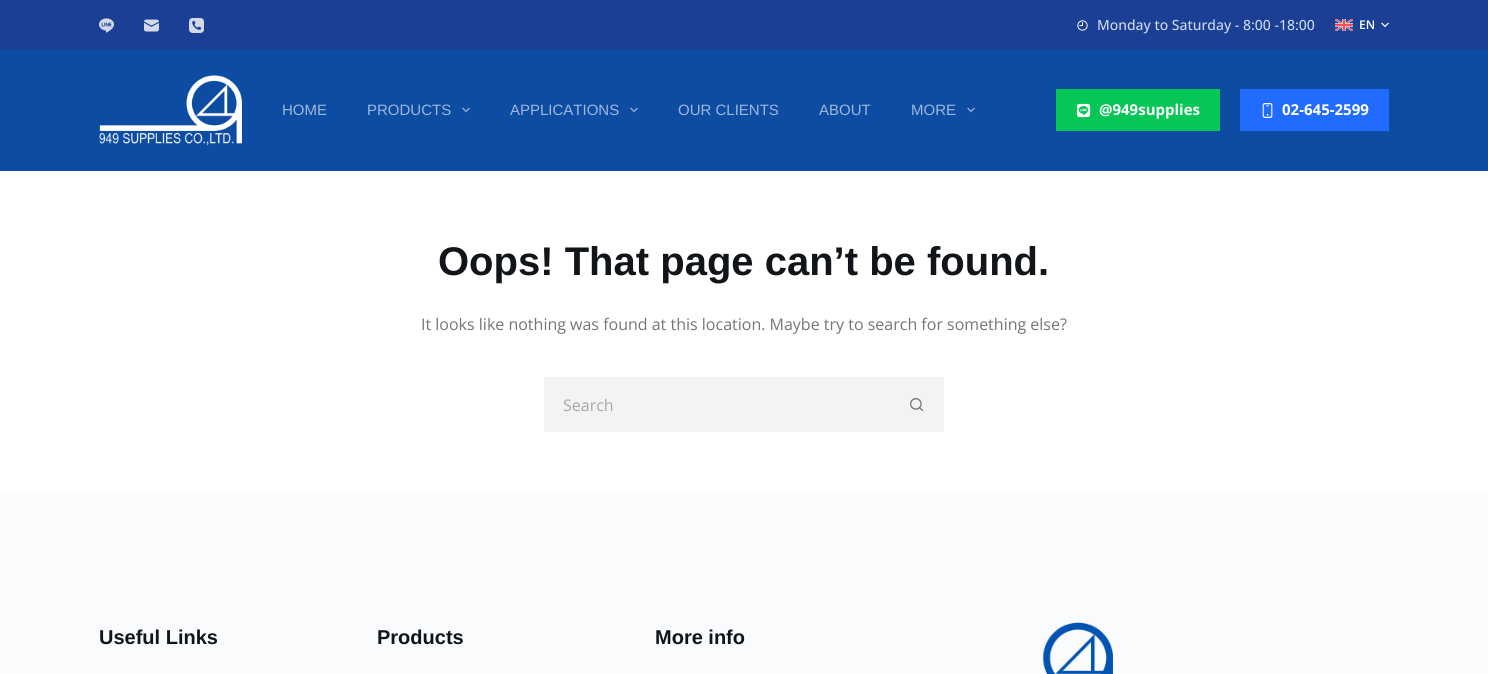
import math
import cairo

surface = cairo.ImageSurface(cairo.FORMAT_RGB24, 1488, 674)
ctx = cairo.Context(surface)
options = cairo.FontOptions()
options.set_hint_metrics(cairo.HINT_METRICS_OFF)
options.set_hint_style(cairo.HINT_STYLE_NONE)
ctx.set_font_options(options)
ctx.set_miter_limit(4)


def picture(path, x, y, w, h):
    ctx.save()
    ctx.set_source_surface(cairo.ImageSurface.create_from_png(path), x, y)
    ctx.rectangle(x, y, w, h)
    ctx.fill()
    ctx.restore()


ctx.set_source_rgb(1, 1, 1)
ctx.paint()
ctx.set_source_rgb(0.106, 0.247, 0.584)
ctx.rectangle(0, 0, 1488, 50)
ctx.fill()
picture("img1.png", 99, 18, 15, 15)
picture("img2.png", 144, 19, 15, 13)
picture("img3.png", 189, 18, 15, 15)
picture("img4.png", 1077, 20, 11, 11)
ctx.select_font_face("Open Sans Medium")
ctx.set_font_size(14)
ctx.set_source_rgb(0.82, 0.851, 0.918)
ctx.move_to(1097, 30)
ctx.show_text("Monday to Saturday - 8:00 -18:00")
picture("img5.png", 1335, 19, 18, 12)
ctx.select_font_face("Open Sans SemiBold")
ctx.set_font_size(12)
ctx.set_source_rgb(1, 1, 1)
ctx.move_to(1359, 29)
ctx.show_text("EN")
picture("img6.png", 1381, 22, 8, 6)
ctx.set_source_rgb(0.047, 0.298, 0.639)
ctx.rectangle(0, 50, 1488, 120)
ctx.fill()
ctx.set_source_rgb(0.059, 0.298, 0.694)
ctx.rectangle(0, 170, 1488, 1)
ctx.fill()
picture("img7.png", 99, 75, 143, 70)
ctx.select_font_face("Liberation Sans")
ctx.set_font_size(15)
ctx.set_source_rgb(0.62, 0.718, 0.855)
ctx.move_to(282, 115)
ctx.show_text("HOME")
ctx.move_to(367, 115)
ctx.show_text("PRODUCTS")
picture("img8.png", 462, 107, 8, 6)
ctx.move_to(510, 115)
ctx.show_text("APPLICATIONS")
picture("img8.png", 630, 107, 8, 6)
ctx.move_to(678, 115)
ctx.show_text("OUR CLIENTS")
ctx.move_to(819, 115)
ctx.show_text("ABOUT")
ctx.move_to(911, 115)
ctx.show_text("MORE")
picture("img8.png", 967, 107, 8, 6)
ctx.set_source_rgb(0.024, 0.78, 0.333)
ctx.rectangle(1056, 89, 164, 42)
ctx.fill()
picture("img9.png", 1076, 103, 15, 15)
ctx.select_font_face("Open Sans", cairo.FONT_SLANT_NORMAL, cairo.FONT_WEIGHT_BOLD)
ctx.set_source_rgb(1, 1, 1)
ctx.move_to(1099, 115)
ctx.show_text("@949supplies")
ctx.set_source_rgb(0.129, 0.424, 1)
ctx.rectangle(1240, 89, 149, 42)
ctx.fill()
picture("img10.png", 1262, 103, 11, 15)
ctx.set_source_rgb(1, 1, 1)
ctx.move_to(1282, 115)
ctx.show_text("02-645-2599")
ctx.select_font_face("Liberation Sans", cairo.FONT_SLANT_NORMAL, cairo.FONT_WEIGHT_BOLD)
ctx.set_font_size(40)
ctx.set_source_rgb(0.067, 0.082, 0.094)
ctx.move_to(438, 275)
ctx.show_text("Oops! That page can’t be found.")
ctx.select_font_face("Open Sans")
ctx.set_font_size(16)
ctx.set_source_rgb(0.459, 0.459, 0.459)
ctx.move_to(421, 330)
ctx.show_text("It looks like nothing was found at this location. Maybe try to search for something else?")
ctx.set_source_rgb(0.953, 0.953, 0.953)
ctx.rectangle(544, 377, 400, 55)
ctx.fill()
ctx.set_source_rgb(0.655, 0.655, 0.655)
ctx.move_to(563, 411)
ctx.show_text("Search")
picture("img11.png", 910, 398, 13, 13)
ctx.set_source_rgb(0.98, 0.984, 0.988)
ctx.rectangle(0, 492, 1488, 182)
ctx.fill()
ctx.select_font_face("Liberation Sans", cairo.FONT_SLANT_NORMAL, cairo.FONT_WEIGHT_BOLD)
ctx.set_font_size(20)
ctx.set_source_rgb(0.067, 0.082, 0.094)
ctx.move_to(99, 644)
ctx.show_text("Useful Links")
ctx.move_to(377, 644)
ctx.show_text("Products")
ctx.move_to(655, 644)
ctx.show_text("More info")
picture("img12.png", 1042, 622, 71, 52)
surface.write_to_png("page.png")
